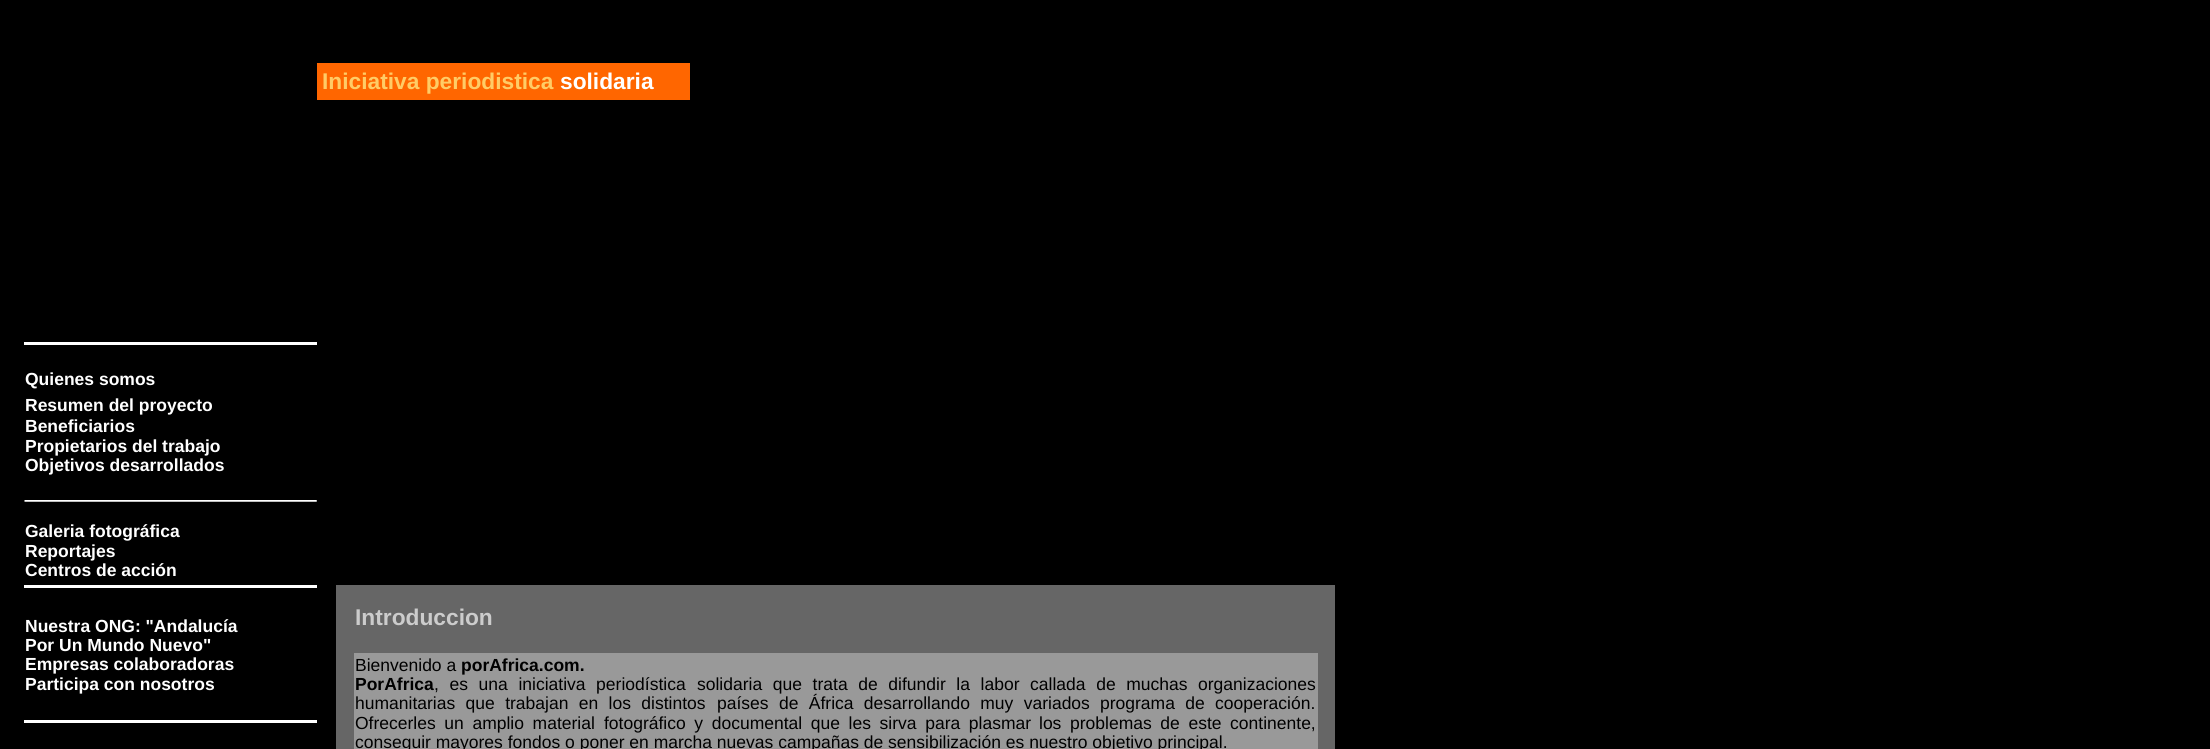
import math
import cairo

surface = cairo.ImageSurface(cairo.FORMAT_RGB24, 2210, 749)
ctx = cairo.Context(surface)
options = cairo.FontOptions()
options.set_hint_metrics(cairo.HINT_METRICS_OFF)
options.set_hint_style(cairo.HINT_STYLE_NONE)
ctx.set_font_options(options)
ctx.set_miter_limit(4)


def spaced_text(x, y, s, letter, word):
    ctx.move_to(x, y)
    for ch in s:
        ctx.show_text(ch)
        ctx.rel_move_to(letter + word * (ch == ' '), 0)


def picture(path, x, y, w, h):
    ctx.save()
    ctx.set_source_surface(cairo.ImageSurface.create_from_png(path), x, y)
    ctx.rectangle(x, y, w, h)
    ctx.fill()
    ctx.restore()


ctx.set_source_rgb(0, 0, 0)
ctx.paint()
ctx.set_source_rgb(1, 0.4, 0)
ctx.rectangle(317, 63, 373, 37)
ctx.fill()
ctx.select_font_face("Liberation Sans", cairo.FONT_SLANT_NORMAL, cairo.FONT_WEIGHT_BOLD)
ctx.set_font_size(22.75)
ctx.set_source_rgb(1, 0.8, 0.4)
ctx.move_to(322, 89)
ctx.show_text("Iniciativa periodistica")
ctx.set_source_rgb(1, 1, 1)
ctx.move_to(560, 89)
ctx.show_text("solidaria")
ctx.set_font_size(17.5)
ctx.move_to(25, 385)
ctx.show_text("Quienes somos")
ctx.rectangle(24, 342, 293, 3)
ctx.fill()
ctx.move_to(25, 411)
ctx.show_text("Resumen del proyecto")
ctx.move_to(25, 432)
ctx.show_text("Beneficiarios")
ctx.move_to(25, 452)
ctx.show_text("Propietarios del trabajo")
ctx.move_to(25, 471)
ctx.show_text("Objetivos desarrollados")
picture("img1.png", 24, 500, 293, 2)
ctx.move_to(25, 537)
ctx.show_text("Galeria fotográfica")
ctx.move_to(25, 557)
ctx.show_text("Reportajes")
ctx.move_to(25, 576)
ctx.show_text("Centros de acción")
ctx.rectangle(24, 585, 293, 3)
ctx.fill()
ctx.move_to(25, 632)
ctx.show_text("Nuestra ONG: \"Andalucía")
ctx.move_to(25, 651)
ctx.show_text("Por Un Mundo Nuevo\"")
ctx.move_to(25, 670)
ctx.show_text("Empresas colaboradoras")
ctx.move_to(25, 690)
ctx.show_text("Participa con nosotros")
ctx.rectangle(24, 720, 293, 3)
ctx.fill()
ctx.set_source_rgb(0.4, 0.4, 0.4)
ctx.rectangle(336, 585, 999, 164)
ctx.fill()
ctx.set_font_size(22.75)
ctx.set_source_rgb(0.8, 0.8, 0.8)
ctx.move_to(355, 625)
ctx.show_text("Introduccion")
ctx.set_source_rgb(0.6, 0.6, 0.6)
ctx.rectangle(354, 653, 964, 96)
ctx.fill()
ctx.select_font_face("Liberation Sans")
ctx.set_font_size(17.5)
ctx.set_source_rgb(0, 0, 0)
ctx.move_to(355, 671)
ctx.show_text("Bienvenido a")
ctx.select_font_face("Liberation Sans", cairo.FONT_SLANT_NORMAL, cairo.FONT_WEIGHT_BOLD)
ctx.move_to(461, 671)
ctx.show_text("porAfrica.com.")
ctx.move_to(355, 690)
ctx.show_text("PorAfrica")
ctx.select_font_face("Liberation Sans")
spaced_text(434, 690, ", es una iniciativa periodística", 0, 5.75)
spaced_text(697, 690, "solidaria que trata de difundir la labor callada de muchas", 0, 5.75)
ctx.move_to(1198, 690)
ctx.show_text("organizaciones")
spaced_text(355, 709, "humanitarias que trabajan en los distintos", 0, 5.5)
spaced_text(717, 709, "países de África desarrollando muy variados", 0, 5.5)
spaced_text(1100, 709, "programa de cooperación.", 0, 5.5)
spaced_text(355, 729, "Ofrecerles un amplio material", 0, 3.75)
spaced_text(604, 729, "fotográfico y documental que les sirva para plasmar", 0, 3.75)
spaced_text(1039, 729, "los problemas de este continente,", 0, 3.75)
ctx.move_to(355, 748)
ctx.show_text("conseguir mayores fondos o poner en marcha nuevas campañas de sensibilización es nuestro objetivo principal.")
surface.write_to_png("page.png")
